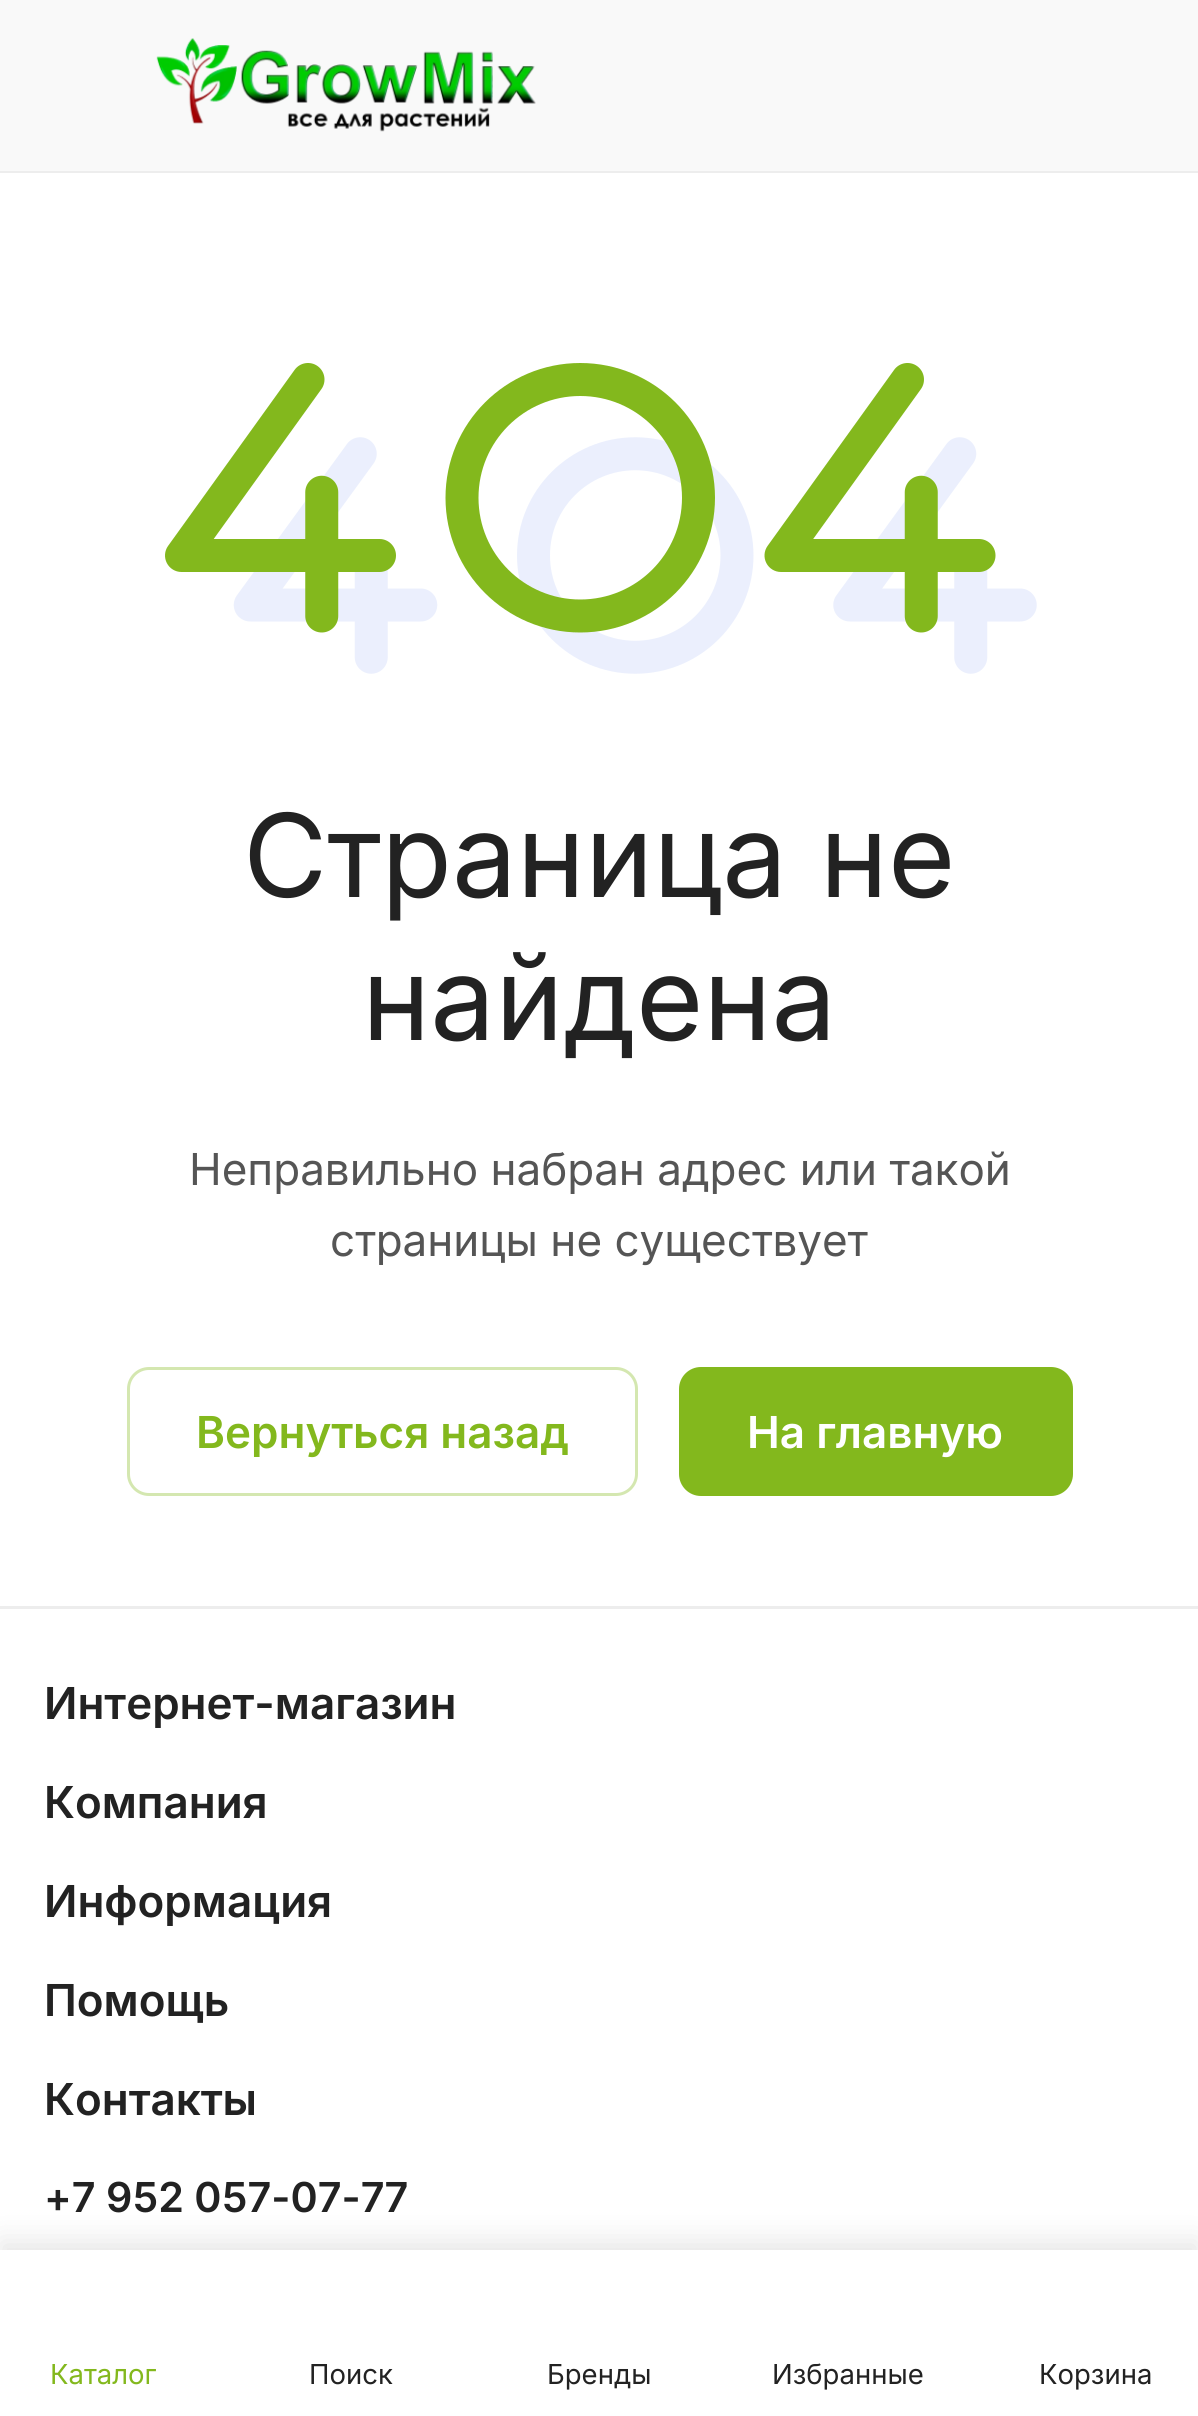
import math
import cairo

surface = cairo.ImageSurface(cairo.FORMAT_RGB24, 1198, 2416)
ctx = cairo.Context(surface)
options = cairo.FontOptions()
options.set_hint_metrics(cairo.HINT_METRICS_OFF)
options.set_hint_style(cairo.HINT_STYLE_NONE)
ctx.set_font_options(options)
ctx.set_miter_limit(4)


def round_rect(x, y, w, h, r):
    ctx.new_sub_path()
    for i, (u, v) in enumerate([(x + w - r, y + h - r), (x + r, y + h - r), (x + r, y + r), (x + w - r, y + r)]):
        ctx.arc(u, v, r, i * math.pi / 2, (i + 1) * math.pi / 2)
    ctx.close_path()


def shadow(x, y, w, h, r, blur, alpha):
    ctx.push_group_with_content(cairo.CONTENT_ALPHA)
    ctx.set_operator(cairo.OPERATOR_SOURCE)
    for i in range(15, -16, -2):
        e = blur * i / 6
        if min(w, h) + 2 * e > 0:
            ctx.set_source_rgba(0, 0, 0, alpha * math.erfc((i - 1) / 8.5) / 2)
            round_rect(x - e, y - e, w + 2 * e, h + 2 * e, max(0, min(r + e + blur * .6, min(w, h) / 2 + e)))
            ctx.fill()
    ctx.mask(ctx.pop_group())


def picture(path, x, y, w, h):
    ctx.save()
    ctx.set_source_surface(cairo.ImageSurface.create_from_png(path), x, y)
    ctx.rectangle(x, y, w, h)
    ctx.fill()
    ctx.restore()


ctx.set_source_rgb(1, 1, 1)
ctx.paint()
ctx.set_source_rgb(0.929, 0.929, 0.929)
ctx.rectangle(0, 171, 1198, 2)
ctx.fill()
ctx.set_source_rgb(0.973, 0.973, 0.973)
ctx.rectangle(0, 0, 1198, 171)
ctx.fill()
picture("img1.png", 156, 38, 380, 94)
picture("img2.png", 165, 363, 872, 311)
ctx.select_font_face("Inter")
ctx.set_font_size(115.5)
ctx.set_source_rgb(0.133, 0.133, 0.133)
ctx.move_to(243, 897)
ctx.show_text("Страница не")
ctx.move_to(362, 1040)
ctx.show_text("найдена")
ctx.set_font_size(44)
ctx.set_source_rgb(0.333, 0.333, 0.333)
ctx.move_to(189, 1185)
ctx.show_text("Неправильно набран адрес или такой")
ctx.move_to(330, 1256)
ctx.show_text("страницы не существует")
round_rect(128.5, 1368.5, 508, 126, 20.5)
ctx.set_source_rgb(0.831, 0.906, 0.69)
ctx.set_line_width(3)
ctx.stroke()
ctx.select_font_face("Inter SemiBold")
ctx.set_source_rgb(0.514, 0.722, 0.114)
ctx.move_to(196, 1448)
ctx.show_text("Вернуться назад")
round_rect(680.5, 1368.5, 391, 126, 20.5)
ctx.fill_preserve()
ctx.stroke()
ctx.set_source_rgb(1, 1, 1)
ctx.move_to(747, 1448)
ctx.show_text("На главную")
ctx.set_source_rgb(0.929, 0.929, 0.929)
ctx.rectangle(0, 1606, 1198, 3)
ctx.fill()
ctx.set_source_rgb(0.133, 0.133, 0.133)
ctx.move_to(44, 1719)
ctx.show_text("Интернет-магазин")
ctx.move_to(44, 1818)
ctx.show_text("Компания")
ctx.move_to(44, 1917)
ctx.show_text("Информация")
ctx.move_to(44, 2016)
ctx.show_text("Помощь")
ctx.move_to(44, 2115)
ctx.show_text("Контакты")
ctx.set_font_size(41.25)
ctx.move_to(44, 2212)
ctx.show_text("+7 952 057-07-77")
ctx.set_source_rgb(0, 0, 0)
shadow(0, 2241, 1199, 168, 0, 14, 0.1)
ctx.set_source_rgb(1, 1, 1)
ctx.rectangle(0, 2250, 1198, 166)
ctx.fill()
ctx.select_font_face("Inter")
ctx.set_font_size(27.5)
ctx.set_source_rgb(0.514, 0.722, 0.114)
ctx.move_to(50, 2384)
ctx.show_text("Каталог")
ctx.set_source_rgb(0.133, 0.133, 0.133)
ctx.move_to(309, 2384)
ctx.show_text("Поиск")
ctx.move_to(547, 2384)
ctx.show_text("Бренды")
ctx.move_to(772, 2384)
ctx.show_text("Избранные")
ctx.move_to(1039, 2384)
ctx.show_text("Корзина")
surface.write_to_png("page.png")
